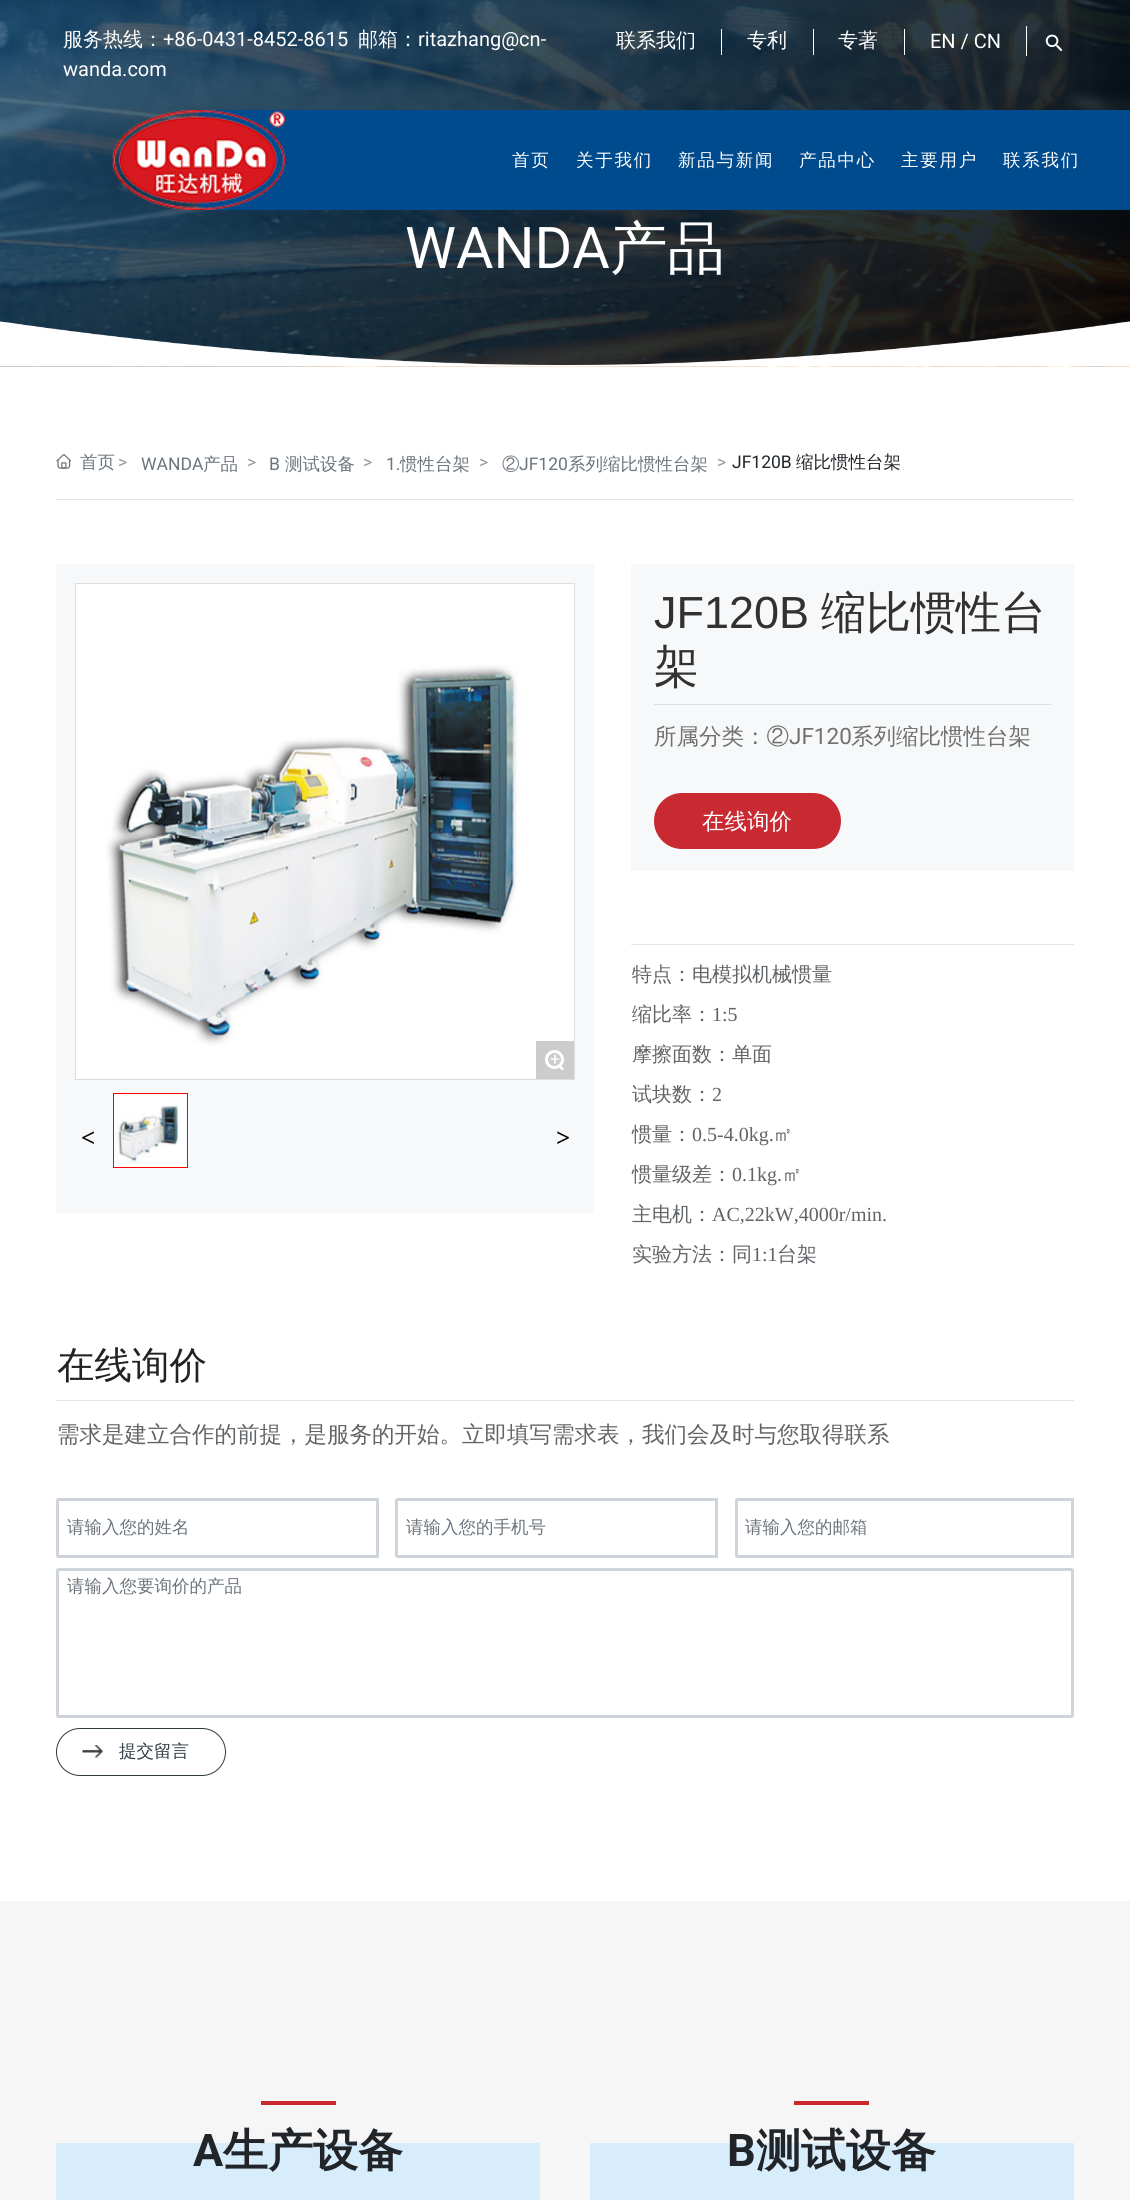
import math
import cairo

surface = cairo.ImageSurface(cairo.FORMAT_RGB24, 1130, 2200)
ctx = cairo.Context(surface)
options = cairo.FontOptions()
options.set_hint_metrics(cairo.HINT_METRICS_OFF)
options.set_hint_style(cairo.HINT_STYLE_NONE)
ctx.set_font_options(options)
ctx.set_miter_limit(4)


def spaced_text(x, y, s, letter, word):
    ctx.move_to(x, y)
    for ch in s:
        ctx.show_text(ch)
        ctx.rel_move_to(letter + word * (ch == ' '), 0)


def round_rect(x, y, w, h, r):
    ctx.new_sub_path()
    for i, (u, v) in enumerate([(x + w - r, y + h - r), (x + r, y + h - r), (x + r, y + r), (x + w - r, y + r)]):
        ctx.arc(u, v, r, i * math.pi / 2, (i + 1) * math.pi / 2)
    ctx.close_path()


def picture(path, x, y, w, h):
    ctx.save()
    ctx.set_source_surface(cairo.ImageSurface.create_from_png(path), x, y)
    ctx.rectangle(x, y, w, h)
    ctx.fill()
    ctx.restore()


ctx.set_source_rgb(1, 1, 1)
ctx.paint()
picture("img3.png", 0, 0, 1130, 367)
ctx.select_font_face("WenQuanYi Zen Hei Medium")
ctx.set_font_size(20)
ctx.set_source_rgb(1, 1, 1)
ctx.move_to(63, 46)
ctx.show_text("服务热线：")
ctx.select_font_face("Roboto")
ctx.move_to(163, 46)
ctx.show_text("+86-0431-8452-8615")
ctx.select_font_face("WenQuanYi Zen Hei Medium")
ctx.move_to(358, 46)
ctx.show_text("邮箱：")
ctx.select_font_face("Roboto")
ctx.move_to(418, 46)
ctx.show_text("ritazhang@cn-")
ctx.move_to(63, 76)
ctx.show_text("wanda.com")
ctx.rectangle(721, 29, 1, 26)
ctx.fill()
ctx.select_font_face("WenQuanYi Zen Hei Medium")
ctx.move_to(616, 47)
ctx.show_text("联系我们")
ctx.rectangle(813, 29, 1, 26)
ctx.fill()
ctx.move_to(747, 47)
ctx.show_text("专利")
ctx.rectangle(904, 29, 1, 26)
ctx.fill()
ctx.move_to(838, 47)
ctx.show_text("专著")
ctx.rectangle(1026, 26, 1, 30)
ctx.fill()
ctx.select_font_face("Roboto")
ctx.move_to(930, 48)
ctx.show_text("EN / CN")
picture("img1.png", 1045, 34, 18, 17)
picture("img2.png", 112, 110, 173, 100)
ctx.set_source_rgb(0, 0.294, 0.553)
ctx.rectangle(285, 110, 845, 100)
ctx.fill()
ctx.select_font_face("WenQuanYi Zen Hei Medium")
ctx.set_font_size(17.5)
ctx.set_source_rgb(1, 1, 1)
spaced_text(512, 166, "首页", 1.75, 0)
spaced_text(576, 166, "关于我们", 1.75, 0)
spaced_text(678, 166, "新品与新闻", 1.75, 0)
spaced_text(799, 166, "产品中心", 1.75, 0)
spaced_text(901, 166, "主要用户", 1.75, 0)
spaced_text(1003, 166, "联系我们", 1.75, 0)
ctx.select_font_face("Roboto")
ctx.set_font_size(57.5)
ctx.move_to(405, 268)
ctx.show_text("WANDA")
ctx.select_font_face("WenQuanYi Zen Hei Medium")
ctx.move_to(610, 268)
ctx.show_text("产品")
picture("img4.png", 0, 321, 1130, 45)
picture("img5.png", 56, 454, 15, 15)
ctx.set_font_size(17.5)
ctx.set_source_rgb(0.424, 0.459, 0.49)
ctx.move_to(80, 468)
ctx.show_text("首页")
ctx.select_font_face("Roboto")
ctx.set_source_rgb(0.6, 0.6, 0.6)
ctx.move_to(118, 468)
ctx.show_text(">")
ctx.set_source_rgb(0.424, 0.459, 0.49)
ctx.move_to(141, 470)
ctx.show_text("WANDA")
ctx.select_font_face("WenQuanYi Zen Hei Medium")
ctx.move_to(203, 470)
ctx.show_text("产品")
ctx.select_font_face("Roboto")
ctx.set_source_rgb(0.6, 0.6, 0.6)
ctx.move_to(247, 468)
ctx.show_text(">")
ctx.set_source_rgb(0.424, 0.459, 0.49)
ctx.move_to(269, 470)
ctx.show_text("B")
ctx.select_font_face("WenQuanYi Zen Hei Medium")
ctx.move_to(285, 470)
ctx.show_text("测试设备")
ctx.select_font_face("Roboto")
ctx.set_source_rgb(0.6, 0.6, 0.6)
ctx.move_to(363, 468)
ctx.show_text(">")
ctx.set_source_rgb(0.424, 0.459, 0.49)
ctx.move_to(386, 470)
ctx.show_text("1.")
ctx.select_font_face("WenQuanYi Zen Hei Medium")
ctx.move_to(400, 470)
ctx.show_text("惯性台架")
ctx.select_font_face("Roboto")
ctx.set_source_rgb(0.6, 0.6, 0.6)
ctx.move_to(479, 468)
ctx.show_text(">")
ctx.select_font_face("WenQuanYi Zen Hei Medium")
ctx.set_source_rgb(0.424, 0.459, 0.49)
ctx.move_to(502, 470)
ctx.show_text("②")
ctx.select_font_face("Roboto")
ctx.move_to(519, 470)
ctx.show_text("JF120")
ctx.select_font_face("WenQuanYi Zen Hei Medium")
ctx.move_to(568, 470)
ctx.show_text("系列缩比惯性台架")
ctx.select_font_face("Roboto")
ctx.set_source_rgb(0.6, 0.6, 0.6)
ctx.move_to(717, 468)
ctx.show_text(">")
ctx.set_source_rgb(0.129, 0.145, 0.161)
ctx.move_to(732, 468)
ctx.show_text("JF120B")
ctx.select_font_face("WenQuanYi Zen Hei Medium")
ctx.move_to(796, 468)
ctx.show_text("缩比惯性台架")
ctx.set_source_rgb(0.902, 0.902, 0.902)
ctx.rectangle(56, 499, 1018, 1)
ctx.fill()
ctx.set_source_rgb(0.965, 0.969, 0.976)
ctx.rectangle(56, 564, 538, 650)
ctx.fill()
ctx.rectangle(75.5, 583.5, 499, 496)
ctx.set_source_rgb(0.867, 0.867, 0.867)
ctx.set_line_width(1)
ctx.stroke()
picture("img6.png", 76, 584, 498, 495)
ctx.set_source_rgb(0.8, 0.8, 0.8)
ctx.rectangle(536, 1041, 38, 38)
ctx.fill()
ctx.arc(554.5, 1059.5, 8, 0, 2 * math.pi)
ctx.set_source_rgb(1, 1, 1)
ctx.set_line_width(3)
ctx.stroke()
ctx.select_font_face("Roboto")
ctx.move_to(550, 1065)
ctx.show_text("+")
ctx.new_path()
ctx.move_to(559.5, 1064.5)
ctx.line_to(564, 1069)
ctx.line_to(562, 1070.5)
ctx.line_to(558, 1066)
ctx.close_path()
ctx.fill()
ctx.rectangle(113.5, 1093.5, 74, 74)
ctx.set_source_rgb(1, 0, 0)
ctx.set_line_width(1)
ctx.stroke()
picture("img7.png", 114, 1094, 73, 73)
ctx.select_font_face("Liberation Serif", cairo.FONT_SLANT_NORMAL, cairo.FONT_WEIGHT_BOLD)
ctx.set_font_size(25)
ctx.set_source_rgb(0, 0, 0)
ctx.move_to(81, 1146)
ctx.show_text("<")
ctx.move_to(556, 1146)
ctx.show_text(">")
ctx.set_source_rgb(0.961, 0.969, 0.976)
ctx.rectangle(631, 564, 443, 307)
ctx.fill()
ctx.select_font_face("Liberation Sans")
ctx.set_font_size(45)
ctx.set_source_rgb(0.192, 0.192, 0.192)
ctx.move_to(654, 628)
ctx.show_text("JF120B")
ctx.select_font_face("WenQuanYi Zen Hei Medium")
ctx.move_to(821, 628)
ctx.show_text("缩比惯性台")
ctx.move_to(654, 682)
ctx.show_text("架")
ctx.set_source_rgb(0.867, 0.871, 0.878)
ctx.rectangle(654, 704, 397, 1)
ctx.fill()
ctx.set_font_size(22.5)
ctx.set_source_rgb(0.439, 0.439, 0.439)
ctx.move_to(654, 744)
ctx.show_text("所属分类：②")
ctx.select_font_face("Roboto")
ctx.move_to(789, 744)
ctx.show_text("JF120")
ctx.select_font_face("WenQuanYi Zen Hei Medium")
ctx.move_to(851, 744)
ctx.show_text("系列缩比惯性台架")
ctx.set_source_rgb(0.788, 0.161, 0.192)
round_rect(654, 793, 187, 56, 28)
ctx.fill()
ctx.set_source_rgb(1, 1, 1)
ctx.move_to(702, 829)
ctx.show_text("在线询价")
ctx.set_source_rgb(0.902, 0.902, 0.902)
ctx.rectangle(631, 944, 443, 1)
ctx.fill()
ctx.set_font_size(20)
ctx.set_source_rgb(0.38, 0.392, 0.404)
ctx.move_to(632, 981)
ctx.show_text("特点：电模拟机械惯量")
ctx.move_to(632, 1021)
ctx.show_text("缩比率：")
ctx.select_font_face("Liberation Serif")
ctx.move_to(712, 1021)
ctx.show_text("1:5")
ctx.select_font_face("WenQuanYi Zen Hei Medium")
ctx.move_to(632, 1061)
ctx.show_text("摩擦面数：单面")
ctx.move_to(632, 1101)
ctx.show_text("试块数：")
ctx.select_font_face("Liberation Serif")
ctx.move_to(712, 1101)
ctx.show_text("2")
ctx.select_font_face("WenQuanYi Zen Hei Medium")
ctx.move_to(632, 1141)
ctx.show_text("惯量：")
ctx.select_font_face("Liberation Serif")
ctx.move_to(692, 1141)
ctx.show_text("0.5-4.0kg.")
ctx.select_font_face("WenQuanYi Zen Hei Medium")
ctx.move_to(773, 1141)
ctx.show_text("㎡")
ctx.move_to(632, 1181)
ctx.show_text("惯量级差：")
ctx.select_font_face("Liberation Serif")
ctx.move_to(732, 1181)
ctx.show_text("0.1kg.")
ctx.select_font_face("WenQuanYi Zen Hei Medium")
ctx.move_to(782, 1181)
ctx.show_text("㎡")
ctx.move_to(632, 1221)
ctx.show_text("主电机：")
ctx.select_font_face("Liberation Serif")
ctx.move_to(712, 1221)
ctx.show_text("AC,22kW,4000r/min.")
ctx.select_font_face("WenQuanYi Zen Hei Medium")
ctx.move_to(632, 1261)
ctx.show_text("实验方法：同")
ctx.select_font_face("Liberation Serif")
ctx.move_to(752, 1261)
ctx.show_text("1:1")
ctx.select_font_face("WenQuanYi Zen Hei Medium")
ctx.move_to(777, 1261)
ctx.show_text("台架")
ctx.set_font_size(37.5)
ctx.set_source_rgb(0.133, 0.133, 0.133)
ctx.move_to(57, 1378)
ctx.show_text("在线询价")
ctx.set_source_rgb(0.902, 0.902, 0.902)
ctx.rectangle(56, 1400, 1018, 1)
ctx.fill()
ctx.set_font_size(22.5)
ctx.set_source_rgb(0.38, 0.392, 0.404)
ctx.move_to(57, 1442)
ctx.show_text("需求是建立合作的前提，是服务的开始。立即填写需求表，我们会及时与您取得联系")
ctx.new_path()
ctx.move_to(58.5, 1499.5)
ctx.line_to(377.5, 1499.5)
ctx.line_to(377.5, 1556.5)
ctx.line_to(58.5, 1556.5)
ctx.curve_to(58, 1556.5, 57.5, 1556, 57.5, 1555.5)
ctx.line_to(57.5, 1500.5)
ctx.curve_to(57.5, 1500, 58, 1499.5, 58.5, 1499.5)
ctx.close_path()
ctx.set_source_rgb(0.808, 0.831, 0.855)
ctx.set_line_width(3)
ctx.stroke()
ctx.set_font_size(17.5)
ctx.set_source_rgb(0.424, 0.459, 0.49)
ctx.move_to(67, 1533)
ctx.show_text("请输入您的姓名")
ctx.new_path()
ctx.move_to(397.5, 1499.5)
ctx.line_to(716.5, 1499.5)
ctx.line_to(716.5, 1556.5)
ctx.line_to(397.5, 1556.5)
ctx.curve_to(397, 1556.5, 396.5, 1556, 396.5, 1555.5)
ctx.line_to(396.5, 1500.5)
ctx.curve_to(396.5, 1500, 397, 1499.5, 397.5, 1499.5)
ctx.close_path()
ctx.set_source_rgb(0.808, 0.831, 0.855)
ctx.stroke()
ctx.set_source_rgb(0.424, 0.459, 0.49)
ctx.move_to(406, 1533)
ctx.show_text("请输入您的手机号")
ctx.new_path()
ctx.move_to(737.5, 1499.5)
ctx.line_to(1072.5, 1499.5)
ctx.line_to(1072.5, 1556.5)
ctx.line_to(737.5, 1556.5)
ctx.curve_to(737, 1556.5, 736.5, 1556, 736.5, 1555.5)
ctx.line_to(736.5, 1500.5)
ctx.curve_to(736.5, 1500, 737, 1499.5, 737.5, 1499.5)
ctx.close_path()
ctx.set_source_rgb(0.808, 0.831, 0.855)
ctx.stroke()
ctx.set_source_rgb(0.424, 0.459, 0.49)
ctx.move_to(745, 1533)
ctx.show_text("请输入您的邮箱")
round_rect(57.5, 1569.5, 1015, 147, 1)
ctx.set_source_rgb(0.808, 0.831, 0.855)
ctx.stroke()
ctx.set_source_rgb(0.424, 0.459, 0.49)
ctx.move_to(67, 1592)
ctx.show_text("请输入您要询价的产品")
picture("img8.png", 82, 1745, 21, 13)
round_rect(56.5, 1728.5, 169, 47, 23.5)
ctx.set_source_rgb(0.184, 0.227, 0.251)
ctx.set_line_width(1)
ctx.stroke()
ctx.move_to(119, 1757)
ctx.show_text("提交留言")
ctx.set_source_rgb(0.961, 0.961, 0.961)
ctx.rectangle(0, 1901, 1130, 299)
ctx.fill()
ctx.set_source_rgb(0.843, 0.929, 0.984)
ctx.rectangle(56, 2143, 484, 57)
ctx.fill()
ctx.set_source_rgb(0.788, 0.161, 0.192)
ctx.rectangle(261, 2101, 75, 4)
ctx.fill()
ctx.select_font_face("Roboto", cairo.FONT_SLANT_NORMAL, cairo.FONT_WEIGHT_BOLD)
ctx.set_font_size(45)
ctx.set_source_rgb(0.129, 0.145, 0.161)
ctx.move_to(193, 2166)
ctx.show_text("A")
ctx.select_font_face("WenQuanYi Zen Hei", cairo.FONT_SLANT_NORMAL, cairo.FONT_WEIGHT_BOLD)
ctx.move_to(223, 2166)
ctx.show_text("生产设备")
ctx.set_source_rgb(0.843, 0.929, 0.984)
ctx.rectangle(590, 2143, 484, 57)
ctx.fill()
ctx.set_source_rgb(0.788, 0.161, 0.192)
ctx.rectangle(794, 2101, 75, 4)
ctx.fill()
ctx.select_font_face("Roboto", cairo.FONT_SLANT_NORMAL, cairo.FONT_WEIGHT_BOLD)
ctx.set_source_rgb(0.129, 0.145, 0.161)
ctx.move_to(727, 2166)
ctx.show_text("B")
ctx.select_font_face("WenQuanYi Zen Hei", cairo.FONT_SLANT_NORMAL, cairo.FONT_WEIGHT_BOLD)
ctx.move_to(756, 2166)
ctx.show_text("测试设备")
surface.write_to_png("page.png")
